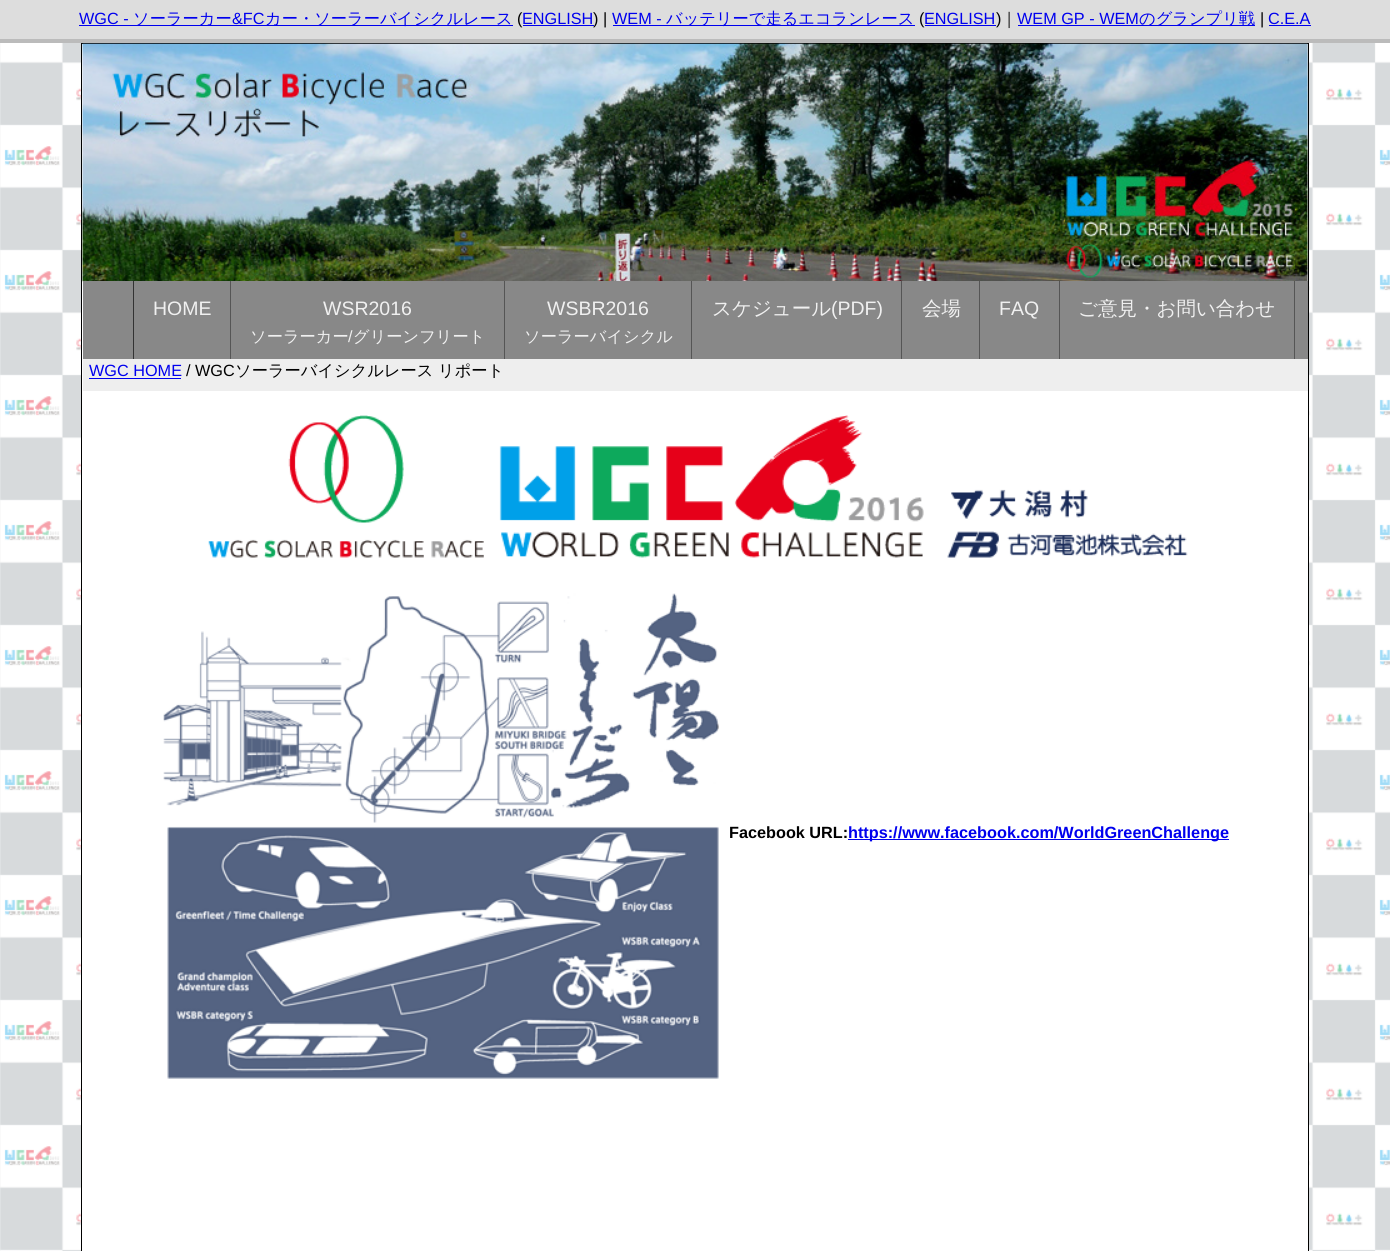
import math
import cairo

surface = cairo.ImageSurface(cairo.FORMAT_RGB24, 1390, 1251)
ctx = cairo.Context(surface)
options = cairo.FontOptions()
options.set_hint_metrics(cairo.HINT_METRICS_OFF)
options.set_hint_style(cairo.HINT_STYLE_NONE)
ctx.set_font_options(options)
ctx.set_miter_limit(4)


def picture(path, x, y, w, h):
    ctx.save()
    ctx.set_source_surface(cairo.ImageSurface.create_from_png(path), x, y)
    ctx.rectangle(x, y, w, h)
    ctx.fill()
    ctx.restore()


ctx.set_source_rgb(1, 1, 1)
ctx.paint()
picture("img1.png", 0, 43, 1390, 1208)
ctx.set_source_rgb(0.867, 0.867, 0.867)
ctx.rectangle(0, 0, 1390, 39)
ctx.fill()
ctx.set_source_rgb(0.733, 0.733, 0.733)
ctx.rectangle(0, 39, 1390, 4)
ctx.fill()
ctx.select_font_face("Liberation Sans")
ctx.set_font_size(16.25)
ctx.set_source_rgb(0, 0, 0.933)
ctx.move_to(79, 24)
ctx.show_text("WGC -")
ctx.rectangle(79, 25, 434, 1)
ctx.fill()
ctx.select_font_face("WenQuanYi Zen Hei Medium")
ctx.move_to(133, 24)
ctx.show_text("ソーラーカー")
ctx.select_font_face("Liberation Sans")
ctx.move_to(232, 24)
ctx.show_text("&FC")
ctx.select_font_face("WenQuanYi Zen Hei Medium")
ctx.move_to(265, 24)
ctx.show_text("カー・ソーラーバイシクルレース")
ctx.select_font_face("Liberation Sans")
ctx.set_source_rgb(0, 0, 0)
ctx.move_to(517, 24)
ctx.show_text("(")
ctx.set_source_rgb(0, 0, 0.933)
ctx.move_to(522, 24)
ctx.show_text("ENGLISH")
ctx.rectangle(523, 25, 71, 1)
ctx.fill()
ctx.set_source_rgb(0, 0, 0)
ctx.move_to(593, 24)
ctx.show_text(") |")
ctx.set_source_rgb(0, 0, 0.933)
ctx.move_to(612, 24)
ctx.show_text("WEM -")
ctx.rectangle(613, 25, 302, 1)
ctx.fill()
ctx.select_font_face("WenQuanYi Zen Hei Medium")
ctx.move_to(666, 24)
ctx.show_text("バッテリーで走るエコランレース")
ctx.select_font_face("Liberation Sans")
ctx.set_source_rgb(0, 0, 0)
ctx.move_to(919, 24)
ctx.show_text("(")
ctx.set_source_rgb(0, 0, 0.933)
ctx.move_to(924, 24)
ctx.show_text("ENGLISH")
ctx.rectangle(925, 25, 71, 1)
ctx.fill()
ctx.set_source_rgb(0, 0, 0)
ctx.move_to(996, 24)
ctx.show_text(")")
ctx.select_font_face("WenQuanYi Zen Hei Medium")
ctx.move_to(1001, 24)
ctx.show_text("｜")
ctx.select_font_face("Liberation Sans")
ctx.set_source_rgb(0, 0, 0.933)
ctx.move_to(1017, 24)
ctx.show_text("WEM GP - WEM")
ctx.rectangle(1018, 25, 237, 1)
ctx.fill()
ctx.select_font_face("WenQuanYi Zen Hei Medium")
ctx.move_to(1139, 24)
ctx.show_text("のグランプリ戦")
ctx.select_font_face("Liberation Sans")
ctx.set_source_rgb(0, 0, 0)
ctx.move_to(1260, 24)
ctx.show_text("|")
ctx.set_source_rgb(0, 0, 0.933)
ctx.move_to(1268, 24)
ctx.show_text("C.E.A")
ctx.rectangle(1269, 25, 42, 1)
ctx.fill()
ctx.set_source_rgb(1, 1, 1)
ctx.rectangle(81.5, 43.5, 1227, 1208)
ctx.fill_preserve()
ctx.set_source_rgb(0, 0, 0)
ctx.set_line_width(1)
ctx.stroke()
ctx.set_source_rgb(0.867, 0.867, 0.867)
ctx.rectangle(1307, 44, 1, 237)
ctx.fill()
picture("img2.png", 82, 43, 1226, 239)
ctx.set_source_rgb(0.533, 0.533, 0.533)
ctx.rectangle(83, 281, 1225, 78)
ctx.fill()
ctx.set_source_rgb(0.333, 0.333, 0.333)
ctx.rectangle(230, 281, 1, 78)
ctx.fill()
ctx.set_source_rgb(0.2, 0.2, 0.2)
ctx.rectangle(133, 281, 1, 78)
ctx.fill()
ctx.set_font_size(19.5)
ctx.set_source_rgb(0.941, 0.941, 0.941)
ctx.move_to(153, 315)
ctx.show_text("HOME")
ctx.set_source_rgb(0.333, 0.333, 0.333)
ctx.rectangle(504, 281, 1, 78)
ctx.fill()
ctx.set_source_rgb(0.941, 0.941, 0.941)
ctx.move_to(323, 315)
ctx.show_text("WSR2016")
ctx.select_font_face("WenQuanYi Zen Hei Medium")
ctx.set_font_size(16.25)
ctx.move_to(250, 342)
ctx.show_text("ソーラーカー")
ctx.select_font_face("Liberation Sans")
ctx.move_to(348, 342)
ctx.show_text("/")
ctx.select_font_face("WenQuanYi Zen Hei Medium")
ctx.move_to(353, 342)
ctx.show_text("グリーンフリート")
ctx.set_source_rgb(0.333, 0.333, 0.333)
ctx.rectangle(691, 281, 1, 78)
ctx.fill()
ctx.select_font_face("Liberation Sans")
ctx.set_font_size(19.5)
ctx.set_source_rgb(0.941, 0.941, 0.941)
ctx.move_to(547, 315)
ctx.show_text("WSBR2016")
ctx.select_font_face("WenQuanYi Zen Hei Medium")
ctx.set_font_size(16.25)
ctx.move_to(524, 342)
ctx.show_text("ソーラーバイシクル")
ctx.set_source_rgb(0.333, 0.333, 0.333)
ctx.rectangle(901, 281, 1, 78)
ctx.fill()
ctx.set_font_size(19.5)
ctx.set_source_rgb(0.941, 0.941, 0.941)
ctx.move_to(712, 315)
ctx.show_text("スケジュール")
ctx.select_font_face("Liberation Sans")
ctx.move_to(831, 315)
ctx.show_text("(PDF)")
ctx.set_source_rgb(0.333, 0.333, 0.333)
ctx.rectangle(979, 281, 1, 78)
ctx.fill()
ctx.select_font_face("WenQuanYi Zen Hei Medium")
ctx.set_source_rgb(0.941, 0.941, 0.941)
ctx.move_to(922, 315)
ctx.show_text("会場")
ctx.set_source_rgb(0.333, 0.333, 0.333)
ctx.rectangle(1059, 281, 1, 78)
ctx.fill()
ctx.select_font_face("Liberation Sans")
ctx.set_source_rgb(0.941, 0.941, 0.941)
ctx.move_to(999, 315)
ctx.show_text("FAQ")
ctx.set_source_rgb(0.333, 0.333, 0.333)
ctx.rectangle(1294, 281, 1, 78)
ctx.fill()
ctx.select_font_face("WenQuanYi Zen Hei Medium")
ctx.set_source_rgb(0.941, 0.941, 0.941)
ctx.move_to(1078, 315)
ctx.show_text("ご意見・お問い合わせ")
ctx.set_source_rgb(0.933, 0.933, 0.933)
ctx.rectangle(83, 359, 1225, 32)
ctx.fill()
ctx.select_font_face("Liberation Sans")
ctx.set_font_size(16.25)
ctx.set_source_rgb(0, 0, 0.933)
ctx.move_to(89, 376)
ctx.show_text("WGC HOME")
ctx.rectangle(89, 378, 92, 1)
ctx.fill()
ctx.set_source_rgb(0, 0, 0)
ctx.move_to(186, 376)
ctx.show_text("/ WGC")
ctx.select_font_face("WenQuanYi Zen Hei Medium")
ctx.move_to(235, 376)
ctx.show_text("ソーラーバイシクルレース")
ctx.move_to(438, 376)
ctx.show_text("リポート")
picture("img3.png", 208, 415, 980, 143)
picture("img4.png", 163, 593, 556, 486)
ctx.select_font_face("Liberation Sans", cairo.FONT_SLANT_NORMAL, cairo.FONT_WEIGHT_BOLD)
ctx.move_to(729, 838)
ctx.show_text("Facebook URL:")
ctx.set_source_rgb(0, 0, 0.933)
ctx.rectangle(848, 839, 381, 1)
ctx.fill()
ctx.move_to(848, 838)
ctx.show_text("https://www.facebook.com/WorldGreenChallenge")
surface.write_to_png("page.png")
